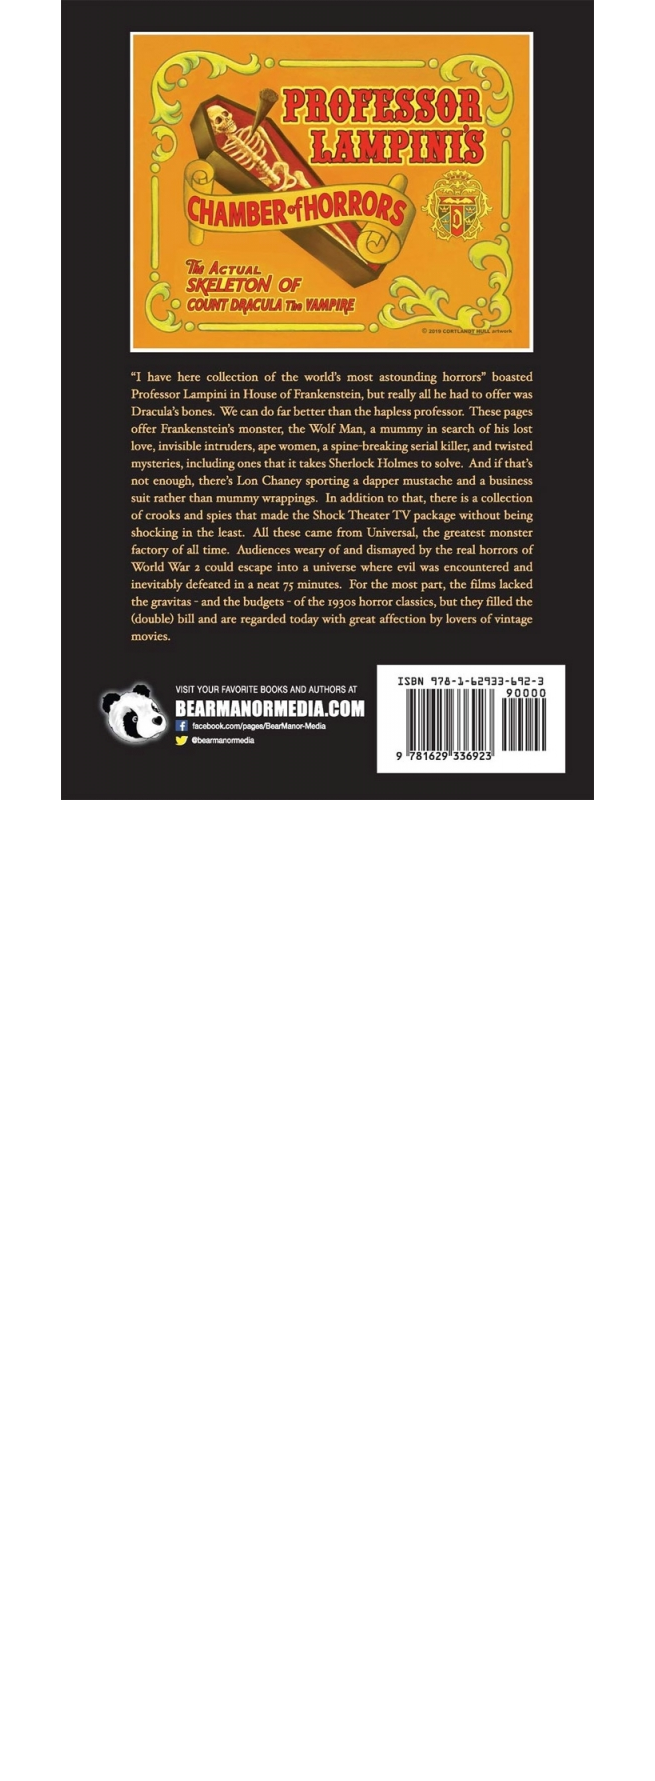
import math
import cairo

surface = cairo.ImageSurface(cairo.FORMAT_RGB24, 655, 1781)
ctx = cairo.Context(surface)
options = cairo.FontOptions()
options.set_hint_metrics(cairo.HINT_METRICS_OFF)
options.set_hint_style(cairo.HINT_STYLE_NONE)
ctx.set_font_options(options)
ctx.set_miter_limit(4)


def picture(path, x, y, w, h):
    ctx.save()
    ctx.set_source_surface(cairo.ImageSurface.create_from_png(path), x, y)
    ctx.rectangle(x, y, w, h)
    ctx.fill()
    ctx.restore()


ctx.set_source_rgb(1, 1, 1)
ctx.paint()
picture("img1.png", 61, 0, 533, 800)
surface.write_to_png("page.png")
